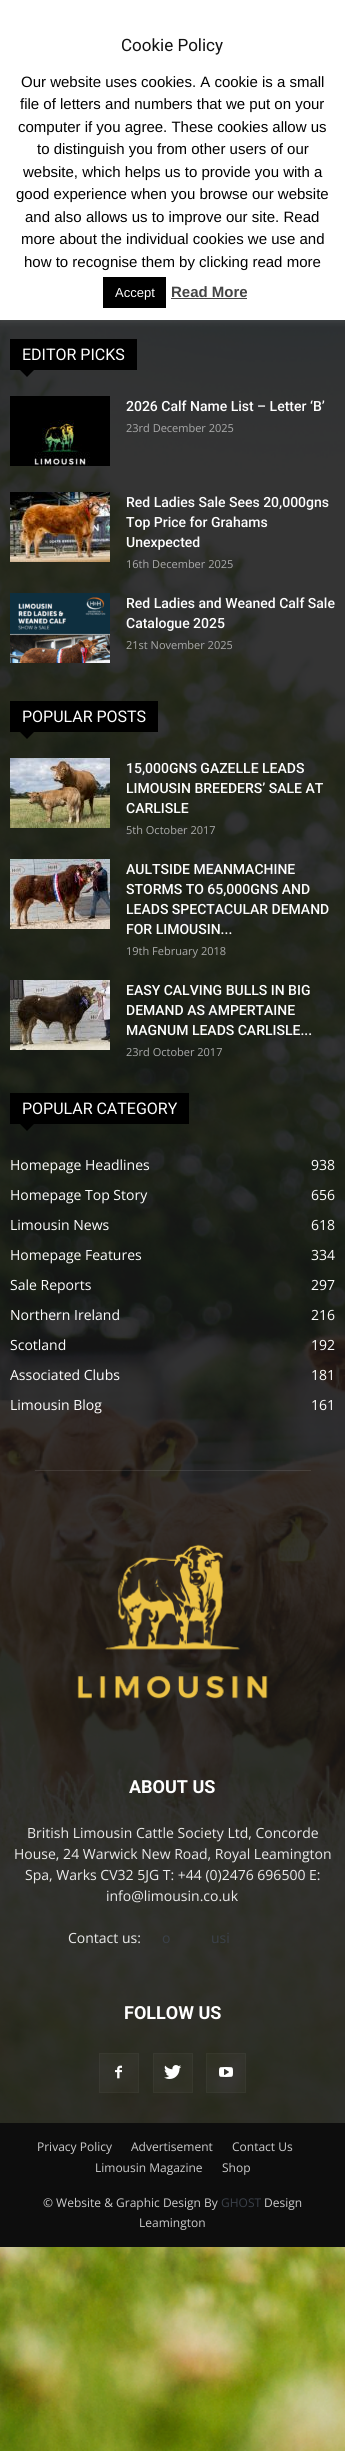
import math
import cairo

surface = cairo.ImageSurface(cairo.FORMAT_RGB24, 345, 2451)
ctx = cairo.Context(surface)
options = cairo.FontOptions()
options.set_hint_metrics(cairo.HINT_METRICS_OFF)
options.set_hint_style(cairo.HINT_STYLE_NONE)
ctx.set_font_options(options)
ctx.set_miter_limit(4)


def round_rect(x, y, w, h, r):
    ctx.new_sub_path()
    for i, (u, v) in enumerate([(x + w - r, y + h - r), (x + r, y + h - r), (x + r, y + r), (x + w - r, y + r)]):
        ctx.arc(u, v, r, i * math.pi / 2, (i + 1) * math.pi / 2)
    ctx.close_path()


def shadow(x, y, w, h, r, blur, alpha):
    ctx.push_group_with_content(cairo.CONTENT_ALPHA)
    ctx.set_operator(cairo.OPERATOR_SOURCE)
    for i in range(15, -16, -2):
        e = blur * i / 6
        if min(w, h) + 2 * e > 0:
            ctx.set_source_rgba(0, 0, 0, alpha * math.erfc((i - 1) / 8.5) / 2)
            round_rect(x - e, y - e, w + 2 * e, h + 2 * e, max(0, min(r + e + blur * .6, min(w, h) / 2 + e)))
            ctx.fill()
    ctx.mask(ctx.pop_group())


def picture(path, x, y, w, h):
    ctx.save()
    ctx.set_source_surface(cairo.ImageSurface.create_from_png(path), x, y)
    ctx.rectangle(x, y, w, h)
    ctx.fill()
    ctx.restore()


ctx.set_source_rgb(1, 1, 1)
ctx.paint()
ctx.set_source_rgb(0.067, 0.067, 0.067)
ctx.rectangle(0, 320, 345, 1803)
ctx.fill()
picture("img1.png", 0, 320, 345, 1803)
ctx.set_source_rgb(0.675, 0.671, 0.671)
shadow(0, -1, 345, 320, 0, 5, 0.3)
ctx.set_source_rgb(1, 1, 1)
ctx.rectangle(0, 0, 345, 320)
ctx.fill()
ctx.select_font_face("Roboto")
ctx.set_font_size(17)
ctx.set_source_rgb(0.067, 0.067, 0.067)
ctx.move_to(121, 51)
ctx.show_text("Cookie Policy")
ctx.select_font_face("Liberation Sans")
ctx.set_font_size(15)
ctx.set_source_rgb(0, 0, 0)
ctx.move_to(21, 87)
ctx.show_text("Our website uses cookies. A cookie is a small")
ctx.move_to(20, 109)
ctx.show_text("file of letters and numbers that we put on your")
ctx.move_to(18, 132)
ctx.show_text("computer if you agree. These cookies allow us")
ctx.move_to(37, 154)
ctx.show_text("to distinguish you from other users of our")
ctx.move_to(23, 177)
ctx.show_text("website, which helps us to provide you with a")
ctx.move_to(16, 199)
ctx.show_text("good experience when you browse our website")
ctx.move_to(25, 222)
ctx.show_text("and also allows us to improve our site. Read")
ctx.move_to(21, 244)
ctx.show_text("more about the individual cookies we use and")
ctx.move_to(24, 267)
ctx.show_text("how to recognise them by clicking read more")
ctx.rectangle(103, 277, 63, 31)
ctx.fill()
ctx.set_font_size(13)
ctx.set_source_rgb(1, 1, 1)
ctx.move_to(115, 297)
ctx.show_text("Accept")
ctx.select_font_face("Liberation Sans", cairo.FONT_SLANT_NORMAL, cairo.FONT_WEIGHT_BOLD)
ctx.set_font_size(15)
ctx.set_source_rgb(0.267, 0.267, 0.267)
ctx.move_to(171, 297)
ctx.show_text("Read More")
ctx.rectangle(171, 298, 76, 1)
ctx.fill()
ctx.set_source_rgb(0, 0, 0)
ctx.rectangle(10, 339, 127, 31)
ctx.fill()
ctx.select_font_face("Roboto")
ctx.set_font_size(16)
ctx.set_source_rgb(1, 1, 1)
ctx.move_to(22, 360)
ctx.show_text("EDITOR PICKS")
ctx.set_source_rgb(0, 0, 0)
ctx.new_path()
ctx.move_to(20, 370)
ctx.line_to(34, 370)
ctx.line_to(27, 377)
ctx.close_path()
ctx.fill()
picture("img2.png", 10, 396, 100, 70)
ctx.select_font_face("Roboto Medium")
ctx.set_font_size(14)
ctx.set_source_rgb(1, 1, 1)
ctx.move_to(126, 411)
ctx.show_text("2026 Calf Name List – Letter ‘B’")
ctx.select_font_face("Open Sans")
ctx.set_font_size(11)
ctx.set_source_rgb(0.667, 0.667, 0.667)
ctx.move_to(126, 432)
ctx.show_text("23rd December 2025")
picture("img3.png", 10, 492, 100, 70)
ctx.select_font_face("Roboto Medium")
ctx.set_font_size(14)
ctx.set_source_rgb(1, 1, 1)
ctx.move_to(126, 507)
ctx.show_text("Red Ladies Sale Sees 20,000gns")
ctx.move_to(126, 527)
ctx.show_text("Top Price for Grahams")
ctx.move_to(126, 547)
ctx.show_text("Unexpected")
ctx.select_font_face("Open Sans")
ctx.set_font_size(11)
ctx.set_source_rgb(0.667, 0.667, 0.667)
ctx.move_to(126, 568)
ctx.show_text("16th December 2025")
picture("img4.png", 10, 593, 100, 70)
ctx.select_font_face("Roboto Medium")
ctx.set_font_size(14)
ctx.set_source_rgb(1, 1, 1)
ctx.move_to(126, 608)
ctx.show_text("Red Ladies and Weaned Calf Sale")
ctx.move_to(126, 628)
ctx.show_text("Catalogue 2025")
ctx.select_font_face("Open Sans")
ctx.set_font_size(11)
ctx.set_source_rgb(0.667, 0.667, 0.667)
ctx.move_to(126, 649)
ctx.show_text("21st November 2025")
ctx.set_source_rgb(0, 0, 0)
ctx.rectangle(10, 701, 148, 31)
ctx.fill()
ctx.select_font_face("Roboto")
ctx.set_font_size(16)
ctx.set_source_rgb(1, 1, 1)
ctx.move_to(22, 722)
ctx.show_text("POPULAR POSTS")
ctx.set_source_rgb(0, 0, 0)
ctx.new_path()
ctx.move_to(20, 732)
ctx.line_to(34, 732)
ctx.line_to(27, 739)
ctx.close_path()
ctx.fill()
picture("img5.png", 10, 758, 100, 70)
ctx.select_font_face("Roboto Medium")
ctx.set_font_size(14)
ctx.set_source_rgb(1, 1, 1)
ctx.move_to(126, 773)
ctx.show_text("15,000GNS GAZELLE LEADS")
ctx.move_to(126, 793)
ctx.show_text("LIMOUSIN BREEDERS’ SALE AT")
ctx.move_to(126, 813)
ctx.show_text("CARLISLE")
ctx.select_font_face("Open Sans")
ctx.set_font_size(11)
ctx.set_source_rgb(0.667, 0.667, 0.667)
ctx.move_to(126, 834)
ctx.show_text("5th October 2017")
picture("img6.png", 10, 859, 100, 70)
ctx.select_font_face("Roboto Medium")
ctx.set_font_size(14)
ctx.set_source_rgb(1, 1, 1)
ctx.move_to(126, 874)
ctx.show_text("AULTSIDE MEANMACHINE")
ctx.move_to(126, 894)
ctx.show_text("STORMS TO 65,000GNS AND")
ctx.move_to(126, 914)
ctx.show_text("LEADS SPECTACULAR DEMAND")
ctx.move_to(126, 934)
ctx.show_text("FOR LIMOUSIN...")
ctx.select_font_face("Open Sans")
ctx.set_font_size(11)
ctx.set_source_rgb(0.667, 0.667, 0.667)
ctx.move_to(126, 955)
ctx.show_text("19th February 2018")
picture("img7.png", 10, 980, 100, 70)
ctx.select_font_face("Roboto Medium")
ctx.set_font_size(14)
ctx.set_source_rgb(1, 1, 1)
ctx.move_to(126, 995)
ctx.show_text("EASY CALVING BULLS IN BIG")
ctx.move_to(126, 1015)
ctx.show_text("DEMAND AS AMPERTAINE")
ctx.move_to(126, 1035)
ctx.show_text("MAGNUM LEADS CARLISLE...")
ctx.select_font_face("Open Sans")
ctx.set_font_size(11)
ctx.set_source_rgb(0.667, 0.667, 0.667)
ctx.move_to(126, 1056)
ctx.show_text("23rd October 2017")
ctx.set_source_rgb(0, 0, 0)
ctx.rectangle(10, 1093, 179, 31)
ctx.fill()
ctx.select_font_face("Roboto")
ctx.set_font_size(16)
ctx.set_source_rgb(1, 1, 1)
ctx.move_to(22, 1114)
ctx.show_text("POPULAR CATEGORY")
ctx.set_source_rgb(0, 0, 0)
ctx.new_path()
ctx.move_to(20, 1124)
ctx.line_to(34, 1124)
ctx.line_to(27, 1131)
ctx.close_path()
ctx.fill()
ctx.select_font_face("Open Sans")
ctx.set_font_size(14)
ctx.set_source_rgb(1, 1, 1)
ctx.move_to(10, 1170)
ctx.show_text("Homepage Headlines")
ctx.move_to(311, 1170)
ctx.show_text("938")
ctx.move_to(10, 1200)
ctx.show_text("Homepage Top Story")
ctx.move_to(311, 1200)
ctx.show_text("656")
ctx.move_to(10, 1230)
ctx.show_text("Limousin News")
ctx.move_to(311, 1230)
ctx.show_text("618")
ctx.move_to(10, 1260)
ctx.show_text("Homepage Features")
ctx.move_to(311, 1260)
ctx.show_text("334")
ctx.move_to(10, 1290)
ctx.show_text("Sale Reports")
ctx.move_to(311, 1290)
ctx.show_text("297")
ctx.move_to(10, 1320)
ctx.show_text("Northern Ireland")
ctx.move_to(311, 1320)
ctx.show_text("216")
ctx.move_to(10, 1350)
ctx.show_text("Scotland")
ctx.move_to(311, 1350)
ctx.show_text("192")
ctx.move_to(10, 1380)
ctx.show_text("Associated Clubs")
ctx.move_to(311, 1380)
ctx.show_text("181")
ctx.move_to(10, 1410)
ctx.show_text("Limousin Blog")
ctx.move_to(311, 1410)
ctx.show_text("161")
ctx.set_source_rgba(1, 1, 1, 0.1)
ctx.rectangle(35, 1470, 276, 1)
ctx.fill()
picture("img8.png", 77, 1544, 191, 155)
ctx.select_font_face("Roboto", cairo.FONT_SLANT_NORMAL, cairo.FONT_WEIGHT_BOLD)
ctx.set_font_size(18)
ctx.set_source_rgb(1, 1, 1)
ctx.move_to(129, 1793)
ctx.show_text("ABOUT US")
ctx.select_font_face("Open Sans")
ctx.set_font_size(14)
ctx.set_source_rgb(0.918, 0.918, 0.918)
ctx.move_to(27, 1838)
ctx.show_text("British Limousin Cattle Society Ltd, Concorde")
ctx.move_to(14, 1859)
ctx.show_text("House, 24 Warwick New Road, Royal Leamington")
ctx.move_to(25, 1880)
ctx.show_text("Spa, Warks CV32 5JG T: +44 (0)2476 696500 E:")
ctx.move_to(106, 1901)
ctx.show_text("info@limousin.co.uk")
ctx.move_to(68, 1943)
ctx.show_text("Contact us:")
ctx.set_source_rgb(0.227, 0.251, 0.286)
ctx.move_to(162, 1943)
ctx.show_text("o")
ctx.move_to(211, 1943)
ctx.show_text("usi")
ctx.select_font_face("Roboto", cairo.FONT_SLANT_NORMAL, cairo.FONT_WEIGHT_BOLD)
ctx.set_font_size(18)
ctx.set_source_rgb(1, 1, 1)
ctx.move_to(124, 2019)
ctx.show_text("FOLLOW US")
ctx.set_source_rgba(1, 1, 1, 0.03)
ctx.rectangle(99, 2053, 40, 40)
ctx.fill()
picture("img9.png", 115, 2065, 7, 14)
ctx.rectangle(99.5, 2053.5, 39, 39)
ctx.set_line_width(1)
ctx.stroke()
ctx.rectangle(153, 2053, 40, 40)
ctx.fill()
picture("img10.png", 164, 2065, 18, 14)
ctx.rectangle(153.5, 2053.5, 39, 39)
ctx.stroke()
ctx.rectangle(206, 2053, 40, 40)
ctx.fill()
picture("img11.png", 219, 2067, 14, 10)
ctx.rectangle(206.5, 2053.5, 39, 39)
ctx.stroke()
ctx.set_source_rgb(0.051, 0.051, 0.051)
ctx.rectangle(0, 2123, 345, 124)
ctx.fill()
ctx.select_font_face("Open Sans")
ctx.set_font_size(12)
ctx.set_source_rgb(0.8, 0.8, 0.8)
ctx.move_to(37, 2151)
ctx.show_text("Privacy Policy")
ctx.move_to(131, 2151)
ctx.show_text("Advertisement")
ctx.move_to(232, 2151)
ctx.show_text("Contact Us")
ctx.move_to(95, 2172)
ctx.show_text("Limousin Magazine")
ctx.move_to(222, 2172)
ctx.show_text("Shop")
ctx.move_to(43, 2207)
ctx.show_text("© Website & Graphic Design By")
ctx.set_source_rgb(0.227, 0.251, 0.286)
ctx.move_to(221, 2207)
ctx.show_text("GHOST")
ctx.set_source_rgb(0.8, 0.8, 0.8)
ctx.move_to(264, 2207)
ctx.show_text("Design")
ctx.move_to(139, 2227)
ctx.show_text("Leamington")
picture("img12.png", 0, 2247, 345, 204)
surface.write_to_png("page.png")
